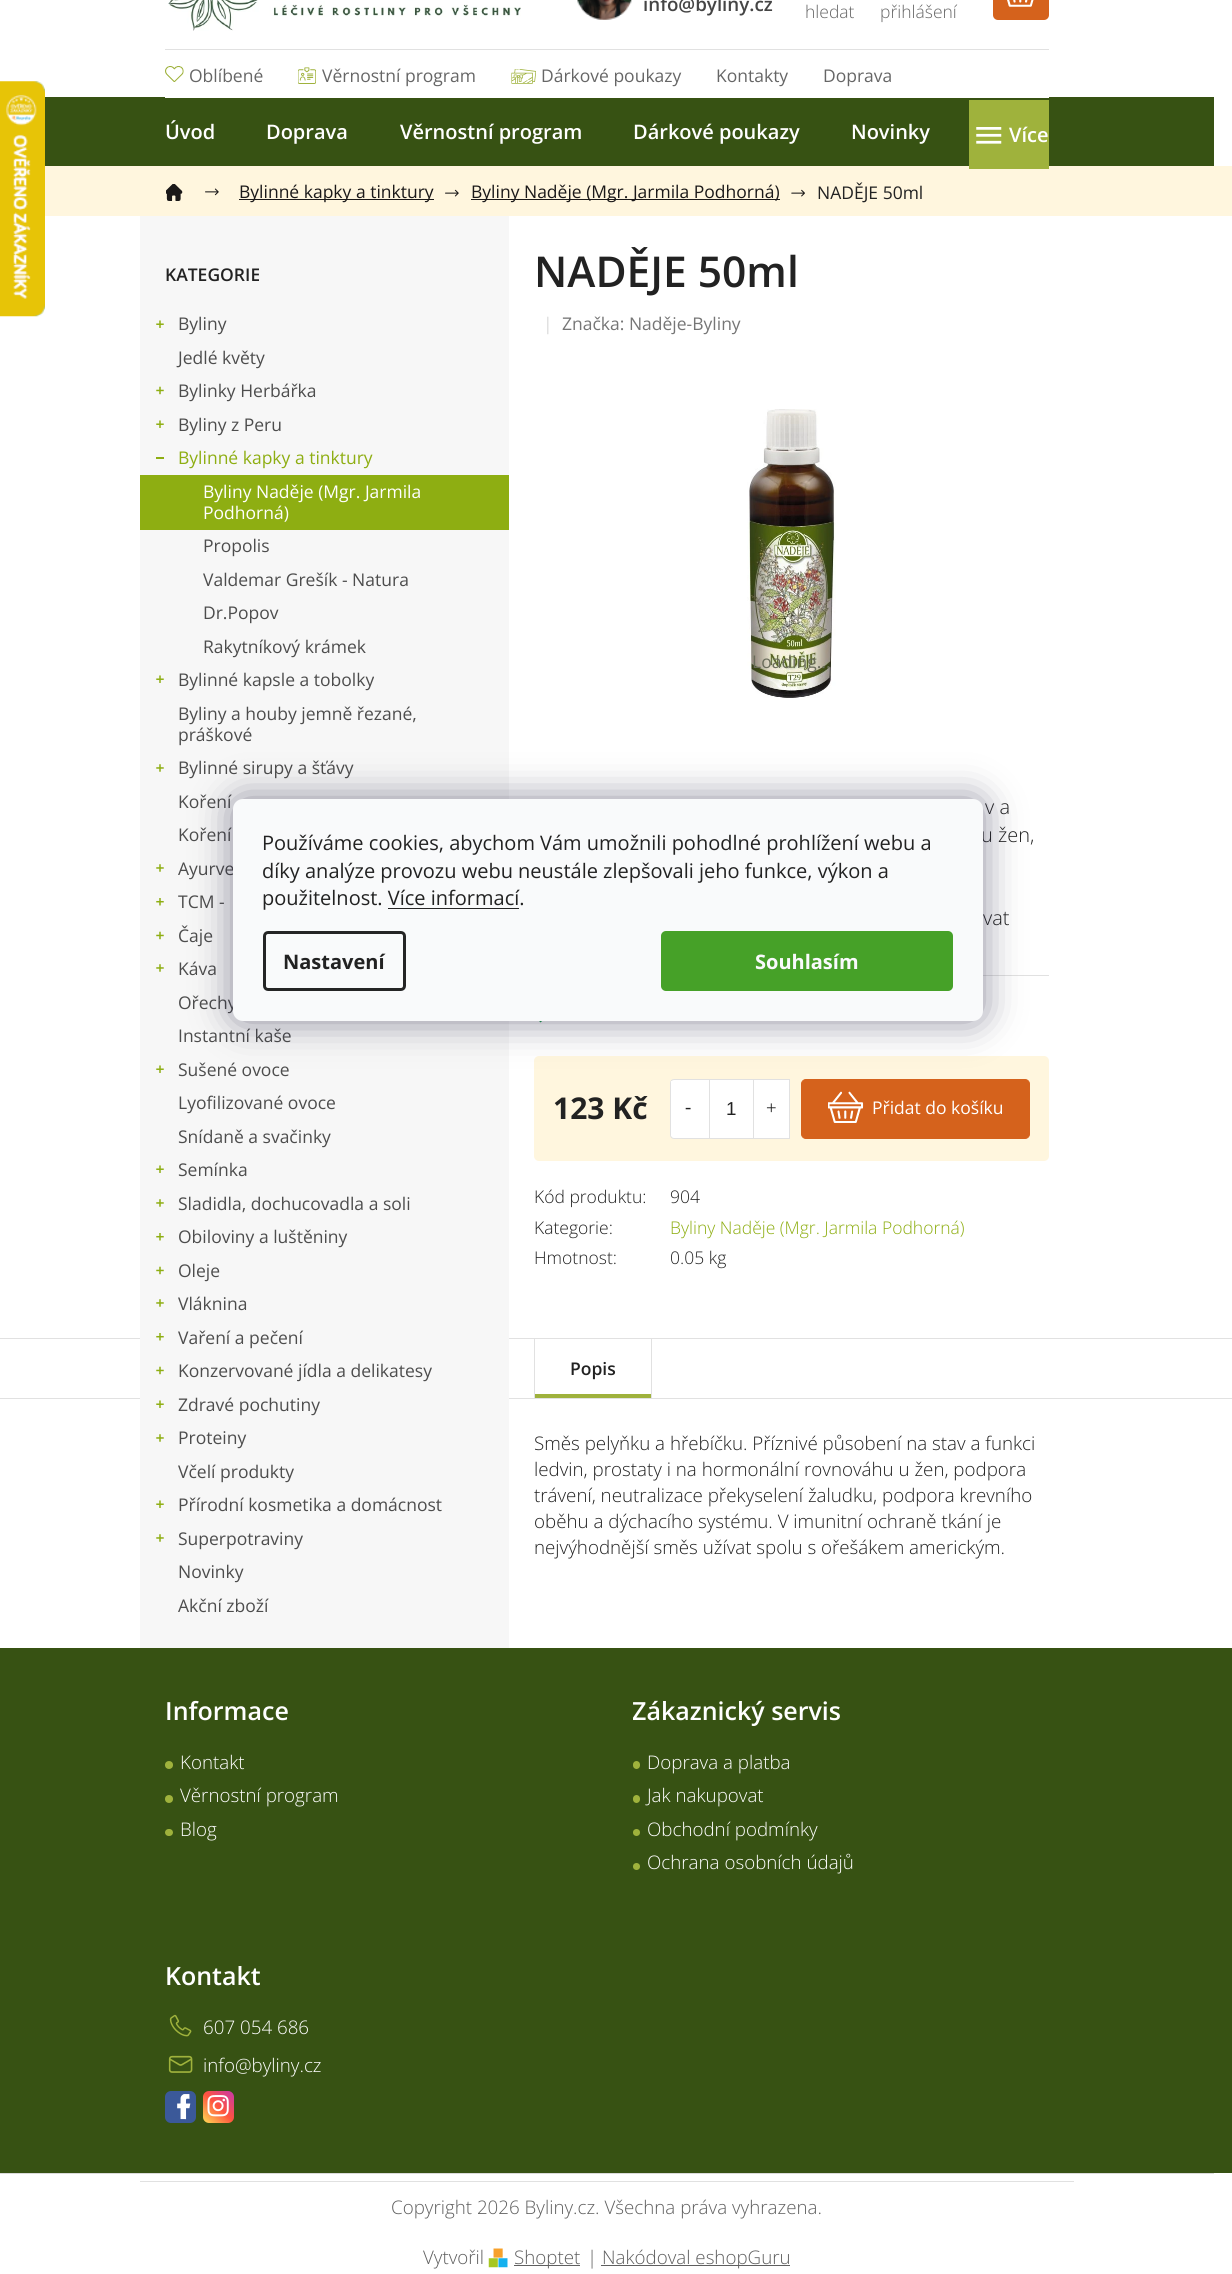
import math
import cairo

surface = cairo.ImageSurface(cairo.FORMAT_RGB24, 1232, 2274)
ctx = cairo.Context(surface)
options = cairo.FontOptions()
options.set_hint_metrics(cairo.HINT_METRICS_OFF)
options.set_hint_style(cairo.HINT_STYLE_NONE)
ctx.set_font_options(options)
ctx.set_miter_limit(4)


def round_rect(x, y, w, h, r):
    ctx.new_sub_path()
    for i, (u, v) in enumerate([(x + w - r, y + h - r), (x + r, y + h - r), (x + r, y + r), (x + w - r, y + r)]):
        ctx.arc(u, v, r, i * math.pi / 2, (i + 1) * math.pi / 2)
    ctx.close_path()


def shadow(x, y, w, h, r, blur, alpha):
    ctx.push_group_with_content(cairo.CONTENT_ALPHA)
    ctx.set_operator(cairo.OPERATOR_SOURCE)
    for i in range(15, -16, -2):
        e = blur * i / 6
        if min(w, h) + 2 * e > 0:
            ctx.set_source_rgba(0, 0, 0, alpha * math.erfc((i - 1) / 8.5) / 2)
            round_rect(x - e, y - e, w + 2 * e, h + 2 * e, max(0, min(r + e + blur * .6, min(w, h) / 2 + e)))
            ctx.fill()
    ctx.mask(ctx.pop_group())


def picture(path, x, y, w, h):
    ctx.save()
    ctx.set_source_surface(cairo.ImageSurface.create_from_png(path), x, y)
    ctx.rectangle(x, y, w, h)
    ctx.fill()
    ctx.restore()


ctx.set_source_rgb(1, 1, 1)
ctx.paint()
picture("img1.png", 0, 81, 45, 236)
ctx.set_source_rgb(0.216, 0.322, 0.078)
ctx.rectangle(45, 97, 1169, 69)
ctx.fill()
picture("img2.png", 168, 0, 353, 31)
picture("img3.png", 577, 0, 55, 20)
ctx.select_font_face("Open Sans SemiBold")
ctx.set_font_size(18.75)
ctx.set_source_rgb(0.271, 0.271, 0.271)
ctx.move_to(643, 11)
ctx.show_text("info@byliny.cz")
ctx.select_font_face("Open Sans Light")
ctx.set_font_size(17.5)
ctx.set_source_rgb(0.4, 0.4, 0.4)
ctx.move_to(805, 18)
ctx.show_text("hledat")
ctx.move_to(880, 18)
ctx.show_text("přihlášení")
ctx.set_source_rgb(0.835, 0.384, 0.11)
round_rect(993, -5, 56, 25, 5)
ctx.fill()
picture("img4.png", 1007, 0, 27, 7)
ctx.set_source_rgb(1, 1, 1)
ctx.rectangle(165, 97, 884, 1)
ctx.fill()
ctx.set_source_rgb(0.882, 0.882, 0.882)
ctx.rectangle(165, 49, 884, 1)
ctx.fill()
picture("img5.png", 165, 66, 19, 16)
ctx.select_font_face("Open Sans")
ctx.set_source_rgb(0.4, 0.4, 0.4)
ctx.move_to(189, 82)
ctx.show_text("Oblíbené")
picture("img6.png", 298, 67, 18, 17)
ctx.move_to(322, 82)
ctx.show_text("Věrnostní program")
picture("img7.png", 511, 69, 25, 15)
ctx.move_to(541, 82)
ctx.show_text("Dárkové poukazy")
ctx.move_to(716, 82)
ctx.show_text("Kontakty")
ctx.move_to(823, 82)
ctx.show_text("Doprava")
ctx.select_font_face("Open Sans SemiBold")
ctx.set_font_size(20)
ctx.set_source_rgb(1, 1, 1)
ctx.move_to(165, 139)
ctx.show_text("Úvod")
ctx.move_to(266, 139)
ctx.show_text("Doprava")
ctx.move_to(400, 139)
ctx.show_text("Věrnostní program")
ctx.move_to(633, 139)
ctx.show_text("Dárkové poukazy")
ctx.move_to(851, 139)
ctx.show_text("Novinky")
ctx.set_source_rgb(1, 0.961, 0.871)
ctx.rectangle(45, 166, 1004, 50)
ctx.fill()
ctx.set_source_rgb(0.624, 0.698, 0.235)
ctx.rectangle(969, 100, 80, 69)
ctx.fill()
picture("img8.png", 976, 127, 26, 17)
ctx.set_source_rgb(1, 1, 1)
ctx.move_to(1009, 142)
ctx.show_text("Více")
picture("img9.png", 166, 184, 17, 17)
picture("img10.png", 205, 188, 14, 8)
ctx.set_source_rgb(0.106, 0.098, 0.098)
ctx.rectangle(239, 199, 195, 1)
ctx.fill()
ctx.select_font_face("Open Sans")
ctx.set_font_size(17.5)
ctx.move_to(239, 198)
ctx.show_text("Bylinné kapky a tinktury")
picture("img11.png", 445, 189, 14, 8)
ctx.rectangle(471, 199, 309, 1)
ctx.fill()
ctx.move_to(471, 198)
ctx.show_text("Byliny Naděje (Mgr. Jarmila Podhorná)")
picture("img12.png", 791, 189, 14, 8)
ctx.set_source_rgb(0.133, 0.133, 0.133)
ctx.move_to(817, 199)
ctx.show_text("NADĚJE 50ml")
ctx.set_source_rgb(1, 0.961, 0.871)
ctx.new_path()
ctx.move_to(166, 166)
ctx.line_to(1049, 166)
ctx.line_to(1049, 216)
ctx.line_to(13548, 216)
ctx.line_to(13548, 166)
ctx.close_path()
ctx.fill()
ctx.set_source_rgb(0.882, 0.882, 0.882)
ctx.rectangle(0, 1338, 1049, 1)
ctx.fill()
ctx.rectangle(0, 1398, 1049, 1)
ctx.fill()
ctx.set_source_rgb(0.965, 0.965, 0.965)
ctx.rectangle(140, 216, 369, 1432)
ctx.fill()
ctx.select_font_face("Open Sans SemiBold")
ctx.set_source_rgb(0.133, 0.133, 0.133)
ctx.move_to(165, 281)
ctx.show_text("KATEGORIE")
picture("img13.png", 156, 320, 8, 8)
ctx.select_font_face("Open Sans")
ctx.set_source_rgb(0.302, 0.302, 0.302)
ctx.move_to(178, 330)
ctx.show_text("Byliny")
ctx.move_to(178, 364)
ctx.show_text("Jedlé květy")
picture("img14.png", 156, 386, 8, 9)
ctx.move_to(178, 397)
ctx.show_text("Bylinky Herbářka")
picture("img13.png", 156, 420, 8, 8)
ctx.move_to(178, 431)
ctx.show_text("Byliny z Peru")
ctx.set_source_rgb(0.557, 0.682, 0.071)
ctx.rectangle(156, 457, 8, 2)
ctx.fill()
ctx.move_to(178, 464)
ctx.show_text("Bylinné kapky a tinktury")
ctx.rectangle(140, 475, 369, 55)
ctx.fill()
ctx.set_source_rgb(1, 1, 1)
ctx.move_to(203, 498)
ctx.show_text("Byliny Naděje (Mgr. Jarmila")
ctx.move_to(203, 519)
ctx.show_text("Podhorná)")
ctx.set_source_rgb(0.302, 0.302, 0.302)
ctx.move_to(203, 552)
ctx.show_text("Propolis")
ctx.move_to(203, 586)
ctx.show_text("Valdemar Grešík - Natura")
ctx.move_to(203, 619)
ctx.show_text("Dr.Popov")
ctx.move_to(203, 653)
ctx.show_text("Rakytníkový krámek")
picture("img13.png", 156, 675, 8, 8)
ctx.move_to(178, 686)
ctx.show_text("Bylinné kapsle a tobolky")
ctx.move_to(178, 720)
ctx.show_text("Byliny a houby jemně řezané,")
ctx.move_to(178, 741)
ctx.show_text("práškové")
picture("img15.png", 156, 764, 8, 8)
ctx.move_to(178, 774)
ctx.show_text("Bylinné sirupy a šťávy")
ctx.move_to(178, 808)
ctx.show_text("Koření")
ctx.move_to(178, 841)
ctx.show_text("Koření")
picture("img15.png", 156, 864, 8, 8)
ctx.move_to(178, 875)
ctx.show_text("Ayurve")
picture("img16.png", 156, 898, 8, 8)
ctx.move_to(178, 908)
ctx.show_text("TCM -")
picture("img14.png", 156, 931, 8, 9)
ctx.move_to(178, 942)
ctx.show_text("Čaje")
picture("img15.png", 156, 964, 8, 8)
ctx.move_to(178, 975)
ctx.show_text("Káva")
ctx.move_to(178, 1009)
ctx.show_text("Ořechy")
ctx.move_to(178, 1042)
ctx.show_text("Instantní kaše")
picture("img13.png", 156, 1065, 8, 8)
ctx.move_to(178, 1076)
ctx.show_text("Sušené ovoce")
ctx.move_to(178, 1109)
ctx.show_text("Lyofilizované ovoce")
ctx.move_to(178, 1143)
ctx.show_text("Snídaně a svačinky")
picture("img13.png", 156, 1165, 8, 8)
ctx.move_to(178, 1176)
ctx.show_text("Semínka")
picture("img15.png", 156, 1199, 8, 8)
ctx.move_to(178, 1210)
ctx.show_text("Sladidla, dochucovadla a soli")
picture("img16.png", 156, 1233, 8, 8)
ctx.move_to(178, 1243)
ctx.show_text("Obiloviny a luštěniny")
picture("img14.png", 156, 1266, 8, 9)
ctx.move_to(178, 1277)
ctx.show_text("Oleje")
picture("img15.png", 156, 1299, 8, 8)
ctx.move_to(178, 1310)
ctx.show_text("Vláknina")
picture("img16.png", 156, 1333, 8, 8)
ctx.move_to(178, 1344)
ctx.show_text("Vaření a pečení")
picture("img14.png", 156, 1366, 8, 9)
ctx.move_to(178, 1377)
ctx.show_text("Konzervované jídla a delikatesy")
picture("img13.png", 156, 1400, 8, 8)
ctx.move_to(178, 1411)
ctx.show_text("Zdravé pochutiny")
picture("img15.png", 156, 1434, 8, 8)
ctx.move_to(178, 1444)
ctx.show_text("Proteiny")
ctx.move_to(178, 1478)
ctx.show_text("Včelí produkty")
picture("img13.png", 156, 1500, 8, 8)
ctx.move_to(178, 1511)
ctx.show_text("Přírodní kosmetika a domácnost")
picture("img15.png", 156, 1534, 8, 8)
ctx.move_to(178, 1545)
ctx.show_text("Superpotraviny")
ctx.move_to(178, 1578)
ctx.show_text("Novinky")
ctx.move_to(178, 1612)
ctx.show_text("Akční zboží")
ctx.select_font_face("Open Sans SemiBold")
ctx.set_font_size(42.5)
ctx.set_source_rgb(0.133, 0.133, 0.133)
ctx.move_to(534, 287)
ctx.show_text("NADĚJE 50ml")
ctx.select_font_face("Open Sans")
ctx.set_font_size(17.5)
ctx.set_source_rgb(0.855, 0.855, 0.855)
ctx.move_to(543, 330)
ctx.show_text("|")
ctx.set_source_rgb(0.463, 0.463, 0.463)
ctx.move_to(562, 330)
ctx.show_text("Značka: Naděje-Byliny")
picture("img17.png", 747, 409, 89, 289)
ctx.set_source_rgb(0.42, 0.427, 0.361)
ctx.move_to(752, 668)
ctx.show_text("Loading...")
ctx.select_font_face("Open Sans Light")
ctx.set_font_size(20)
ctx.set_source_rgb(0.133, 0.133, 0.133)
ctx.move_to(985, 814)
ctx.show_text("v a")
ctx.move_to(981, 842)
ctx.show_text("u žen,")
ctx.move_to(983, 925)
ctx.show_text("vat")
ctx.set_source_rgb(0.882, 0.882, 0.882)
ctx.rectangle(983, 975, 66, 1)
ctx.fill()
ctx.set_source_rgb(0.102, 0.616, 0.302)
ctx.new_path()
ctx.move_to(534, 1015.5)
ctx.line_to(540.5, 1022.5)
ctx.line_to(554, 1009.5)
ctx.line_to(552, 1007.5)
ctx.line_to(540.5, 1018.5)
ctx.line_to(535.5, 1013.5)
ctx.close_path()
ctx.fill()
ctx.set_source_rgb(1, 0.961, 0.871)
round_rect(534, 1056, 515, 105, 5)
ctx.fill()
ctx.select_font_face("Open Sans", cairo.FONT_SLANT_NORMAL, cairo.FONT_WEIGHT_BOLD)
ctx.set_font_size(30)
ctx.set_source_rgb(0.133, 0.133, 0.133)
ctx.move_to(553, 1119)
ctx.show_text("123 Kč")
ctx.set_source_rgb(1, 1, 1)
ctx.new_path()
ctx.move_to(674, 1079.5)
ctx.line_to(789.5, 1079.5)
ctx.line_to(789.5, 1138.5)
ctx.line_to(674, 1138.5)
ctx.curve_to(672, 1138.5, 670.5, 1137, 670.5, 1135)
ctx.line_to(670.5, 1083)
ctx.curve_to(670.5, 1081, 672, 1079.5, 674, 1079.5)
ctx.close_path()
ctx.fill_preserve()
ctx.set_source_rgb(0.882, 0.882, 0.882)
ctx.set_line_width(1)
ctx.stroke()
ctx.set_source_rgb(1, 1, 1)
ctx.rectangle(671, 1081, 1, 55)
ctx.fill()
ctx.select_font_face("Liberation Serif")
ctx.set_font_size(18.75)
ctx.set_source_rgb(0.133, 0.133, 0.133)
ctx.move_to(685, 1113)
ctx.show_text("-")
ctx.set_source_rgb(0.882, 0.882, 0.882)
ctx.rectangle(753, 1080, 1, 58)
ctx.fill()
ctx.rectangle(709, 1080, 1, 58)
ctx.fill()
ctx.select_font_face("Liberation Sans")
ctx.set_source_rgb(0.133, 0.133, 0.133)
ctx.move_to(726, 1115)
ctx.show_text("1")
ctx.select_font_face("Liberation Serif")
ctx.move_to(766, 1114)
ctx.show_text("+")
ctx.set_source_rgb(0.835, 0.384, 0.11)
round_rect(801.5, 1079.5, 228, 59, 4.5)
ctx.fill_preserve()
ctx.stroke()
picture("img18.png", 828, 1091, 36, 32)
ctx.select_font_face("Open Sans")
ctx.set_font_size(17.5)
ctx.set_source_rgb(1, 1, 1)
ctx.move_to(872, 1114)
ctx.show_text("Přidat do košíku")
ctx.select_font_face("Open Sans Light")
ctx.set_source_rgb(0.133, 0.133, 0.133)
ctx.move_to(534, 1203)
ctx.show_text("Kód produktu:")
ctx.move_to(670, 1203)
ctx.show_text("904")
ctx.move_to(534, 1234)
ctx.show_text("Kategorie:")
ctx.set_source_rgb(0.557, 0.682, 0.071)
ctx.move_to(670, 1234)
ctx.show_text("Byliny Naděje (Mgr. Jarmila Podhorná)")
ctx.set_source_rgb(0.133, 0.133, 0.133)
ctx.move_to(534, 1264)
ctx.show_text("Hmotnost:")
ctx.move_to(670, 1264)
ctx.show_text("0.05 kg")
ctx.set_source_rgb(0.882, 0.882, 0.882)
ctx.new_path()
ctx.move_to(535, 1339)
ctx.line_to(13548, 1339)
ctx.line_to(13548, 1338)
ctx.line_to(1049, 1338)
ctx.line_to(1049, 1339)
ctx.close_path()
ctx.fill()
ctx.rectangle(651, 1339, 1, 59)
ctx.fill()
ctx.rectangle(534, 1339, 1, 59)
ctx.fill()
ctx.select_font_face("Open Sans SemiBold")
ctx.set_source_rgb(0.133, 0.133, 0.133)
ctx.move_to(570, 1375)
ctx.show_text("Popis")
ctx.set_source_rgb(0.624, 0.698, 0.235)
ctx.rectangle(535, 1394, 116, 4)
ctx.fill()
ctx.set_source_rgb(0.882, 0.882, 0.882)
ctx.new_path()
ctx.move_to(535, 1399)
ctx.line_to(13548, 1399)
ctx.line_to(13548, 1398)
ctx.line_to(1049, 1398)
ctx.line_to(1049, 1399)
ctx.close_path()
ctx.fill()
ctx.select_font_face("Open Sans Light")
ctx.set_font_size(18.75)
ctx.set_source_rgb(0.133, 0.133, 0.133)
ctx.move_to(534, 1450)
ctx.show_text("Směs pelyňku a hřebíčku. Příznivé působení na stav a funkci")
ctx.move_to(534, 1476)
ctx.show_text("ledvin, prostaty i na hormonální rovnováhu u žen, podpora")
ctx.move_to(534, 1502)
ctx.show_text("trávení, neutralizace překyselení žaludku, podpora krevního")
ctx.move_to(534, 1528)
ctx.show_text("oběhu a dýchacího systému. V imunitní ochraně tkání je")
ctx.move_to(534, 1554)
ctx.show_text("nejvýhodnější směs užívat spolu s ořešákem americkým.")
ctx.set_source_rgb(0.216, 0.322, 0.078)
ctx.new_path()
ctx.move_to(141, 2172)
ctx.line_to(141, 2173)
ctx.line_to(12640, 2173)
ctx.line_to(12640, 1648)
ctx.line_to(141, 1648)
ctx.close_path()
ctx.fill()
ctx.rectangle(0, 1648, 141, 525)
ctx.fill()
ctx.select_font_face("Open Sans SemiBold")
ctx.set_font_size(25)
ctx.set_source_rgb(1, 1, 1)
ctx.move_to(165, 1720)
ctx.show_text("Informace")
ctx.set_source_rgb(0.624, 0.698, 0.235)
ctx.new_path()
ctx.arc(169, 1765, 4, 0, 2 * math.pi)
ctx.fill()
ctx.select_font_face("Open Sans Light")
ctx.set_font_size(18.75)
ctx.set_source_rgb(1, 1, 1)
ctx.move_to(180, 1769)
ctx.show_text("Kontakt")
ctx.set_source_rgb(0.624, 0.698, 0.235)
ctx.new_path()
ctx.arc(169, 1799, 4, 0, 2 * math.pi)
ctx.fill()
ctx.set_source_rgb(1, 1, 1)
ctx.move_to(180, 1802)
ctx.show_text("Věrnostní program")
ctx.set_source_rgb(0.624, 0.698, 0.235)
round_rect(165, 1829, 8, 7, 3.5)
ctx.fill()
ctx.set_source_rgb(1, 1, 1)
ctx.move_to(180, 1836)
ctx.show_text("Blog")
ctx.save()
ctx.rectangle(633, 1660, 416, 240)
ctx.clip()
ctx.select_font_face("Open Sans SemiBold")
ctx.set_font_size(25)
ctx.move_to(632, 1720)
ctx.show_text("Zákaznický servis")
ctx.restore()
ctx.set_source_rgb(0.624, 0.698, 0.235)
round_rect(633, 1761, 7, 8, 3.5)
ctx.fill()
ctx.set_source_rgb(1, 1, 1)
ctx.move_to(647, 1769)
ctx.show_text("Doprava a platba")
ctx.set_source_rgb(0.624, 0.698, 0.235)
round_rect(633, 1795, 7, 8, 3.5)
ctx.fill()
ctx.set_source_rgb(1, 1, 1)
ctx.move_to(647, 1802)
ctx.show_text("Jak nakupovat")
ctx.set_source_rgb(0.624, 0.698, 0.235)
ctx.new_path()
ctx.arc(636.5, 1832.5, 3.5, 0, 2 * math.pi)
ctx.fill()
ctx.set_source_rgb(1, 1, 1)
ctx.move_to(647, 1836)
ctx.show_text("Obchodní podmínky")
ctx.set_source_rgb(0.624, 0.698, 0.235)
ctx.new_path()
ctx.arc(636.5, 1866.5, 3.5, 0, 2 * math.pi)
ctx.fill()
ctx.set_source_rgb(1, 1, 1)
ctx.move_to(647, 1869)
ctx.show_text("Ochrana osobních údajů")
ctx.select_font_face("Open Sans SemiBold")
ctx.set_font_size(25)
ctx.move_to(165, 1985)
ctx.show_text("Kontakt")
picture("img19.png", 169, 2014, 23, 23)
ctx.select_font_face("Open Sans Light")
ctx.set_font_size(18.75)
ctx.move_to(203, 2034)
ctx.show_text("607 054 686")
picture("img20.png", 168, 2055, 25, 18)
ctx.move_to(203, 2072)
ctx.show_text("info@byliny.cz")
ctx.set_source_rgb(0.231, 0.349, 0.6)
round_rect(165, 2091, 31, 32, 6)
ctx.fill()
picture("img21.png", 177, 2094, 14, 26)
gradient = cairo.LinearGradient(203, 2123, 234, 2091)
gradient.add_color_stop_rgba(0, 1, 0.867, 0.333, 1)
gradient.add_color_stop_rgba(0.5, 1, 0.329, 0.243, 1)
gradient.add_color_stop_rgba(1, 0.784, 0.216, 0.671, 1)
ctx.set_source(gradient)
round_rect(203, 2091, 31, 32, 6)
ctx.fill()
picture("img22.png", 207, 2095, 22, 22)
ctx.set_source_rgb(0.106, 0.098, 0.224)
shadow(233, 799, 750, 222, 10, 19, 0.5)
ctx.set_source_rgb(0.973, 0.98, 0.984)
round_rect(233, 799, 750, 222, 10)
ctx.fill()
ctx.select_font_face("Open Sans")
ctx.set_font_size(20)
ctx.set_source_rgb(0.133, 0.133, 0.133)
ctx.move_to(262, 850)
ctx.show_text("Používáme cookies, abychom Vám umožnili pohodlné prohlížení webu a")
ctx.move_to(262, 878)
ctx.show_text("díky analýze provozu webu neustále zlepšovali jeho funkce, výkon a")
ctx.move_to(262, 905)
ctx.show_text("použitelnost. Více informací.")
ctx.set_source_rgb(0.145, 0.145, 0.145)
ctx.rectangle(388, 908, 131, 1)
ctx.fill()
round_rect(264.5, 932.5, 140, 57, 3.5)
ctx.set_line_width(3)
ctx.stroke()
ctx.select_font_face("Open Sans", cairo.FONT_SLANT_NORMAL, cairo.FONT_WEIGHT_BOLD)
ctx.set_source_rgb(0.133, 0.133, 0.133)
ctx.move_to(283, 969)
ctx.show_text("Nastavení")
ctx.set_source_rgb(0.275, 0.631, 0.157)
round_rect(661, 931, 292, 60, 5)
ctx.fill()
ctx.set_source_rgb(0.973, 0.98, 0.984)
ctx.move_to(755, 969)
ctx.show_text("Souhlasím")
ctx.set_source_rgb(0.855, 0.855, 0.855)
ctx.rectangle(0, 2173, 1214, 1)
ctx.fill()
ctx.set_source_rgb(0.882, 0.882, 0.882)
ctx.rectangle(140, 2181, 934, 1)
ctx.fill()
ctx.select_font_face("Open Sans Light")
ctx.set_font_size(18.75)
ctx.set_source_rgb(0.373, 0.373, 0.373)
ctx.move_to(391, 2214)
ctx.show_text("Copyright 2026 Byliny.cz. Všechna práva vyhrazena.")
ctx.move_to(423, 2264)
ctx.show_text("Vytvořil")
picture("img23.png", 488, 2248, 20, 20)
ctx.rectangle(514, 2265, 66, 1)
ctx.fill()
ctx.move_to(514, 2264)
ctx.show_text("Shoptet")
ctx.move_to(587, 2264)
ctx.show_text("|")
ctx.rectangle(601, 2265, 189, 1)
ctx.fill()
ctx.move_to(602, 2264)
ctx.show_text("Nakódoval eshopGuru")
surface.write_to_png("page.png")
